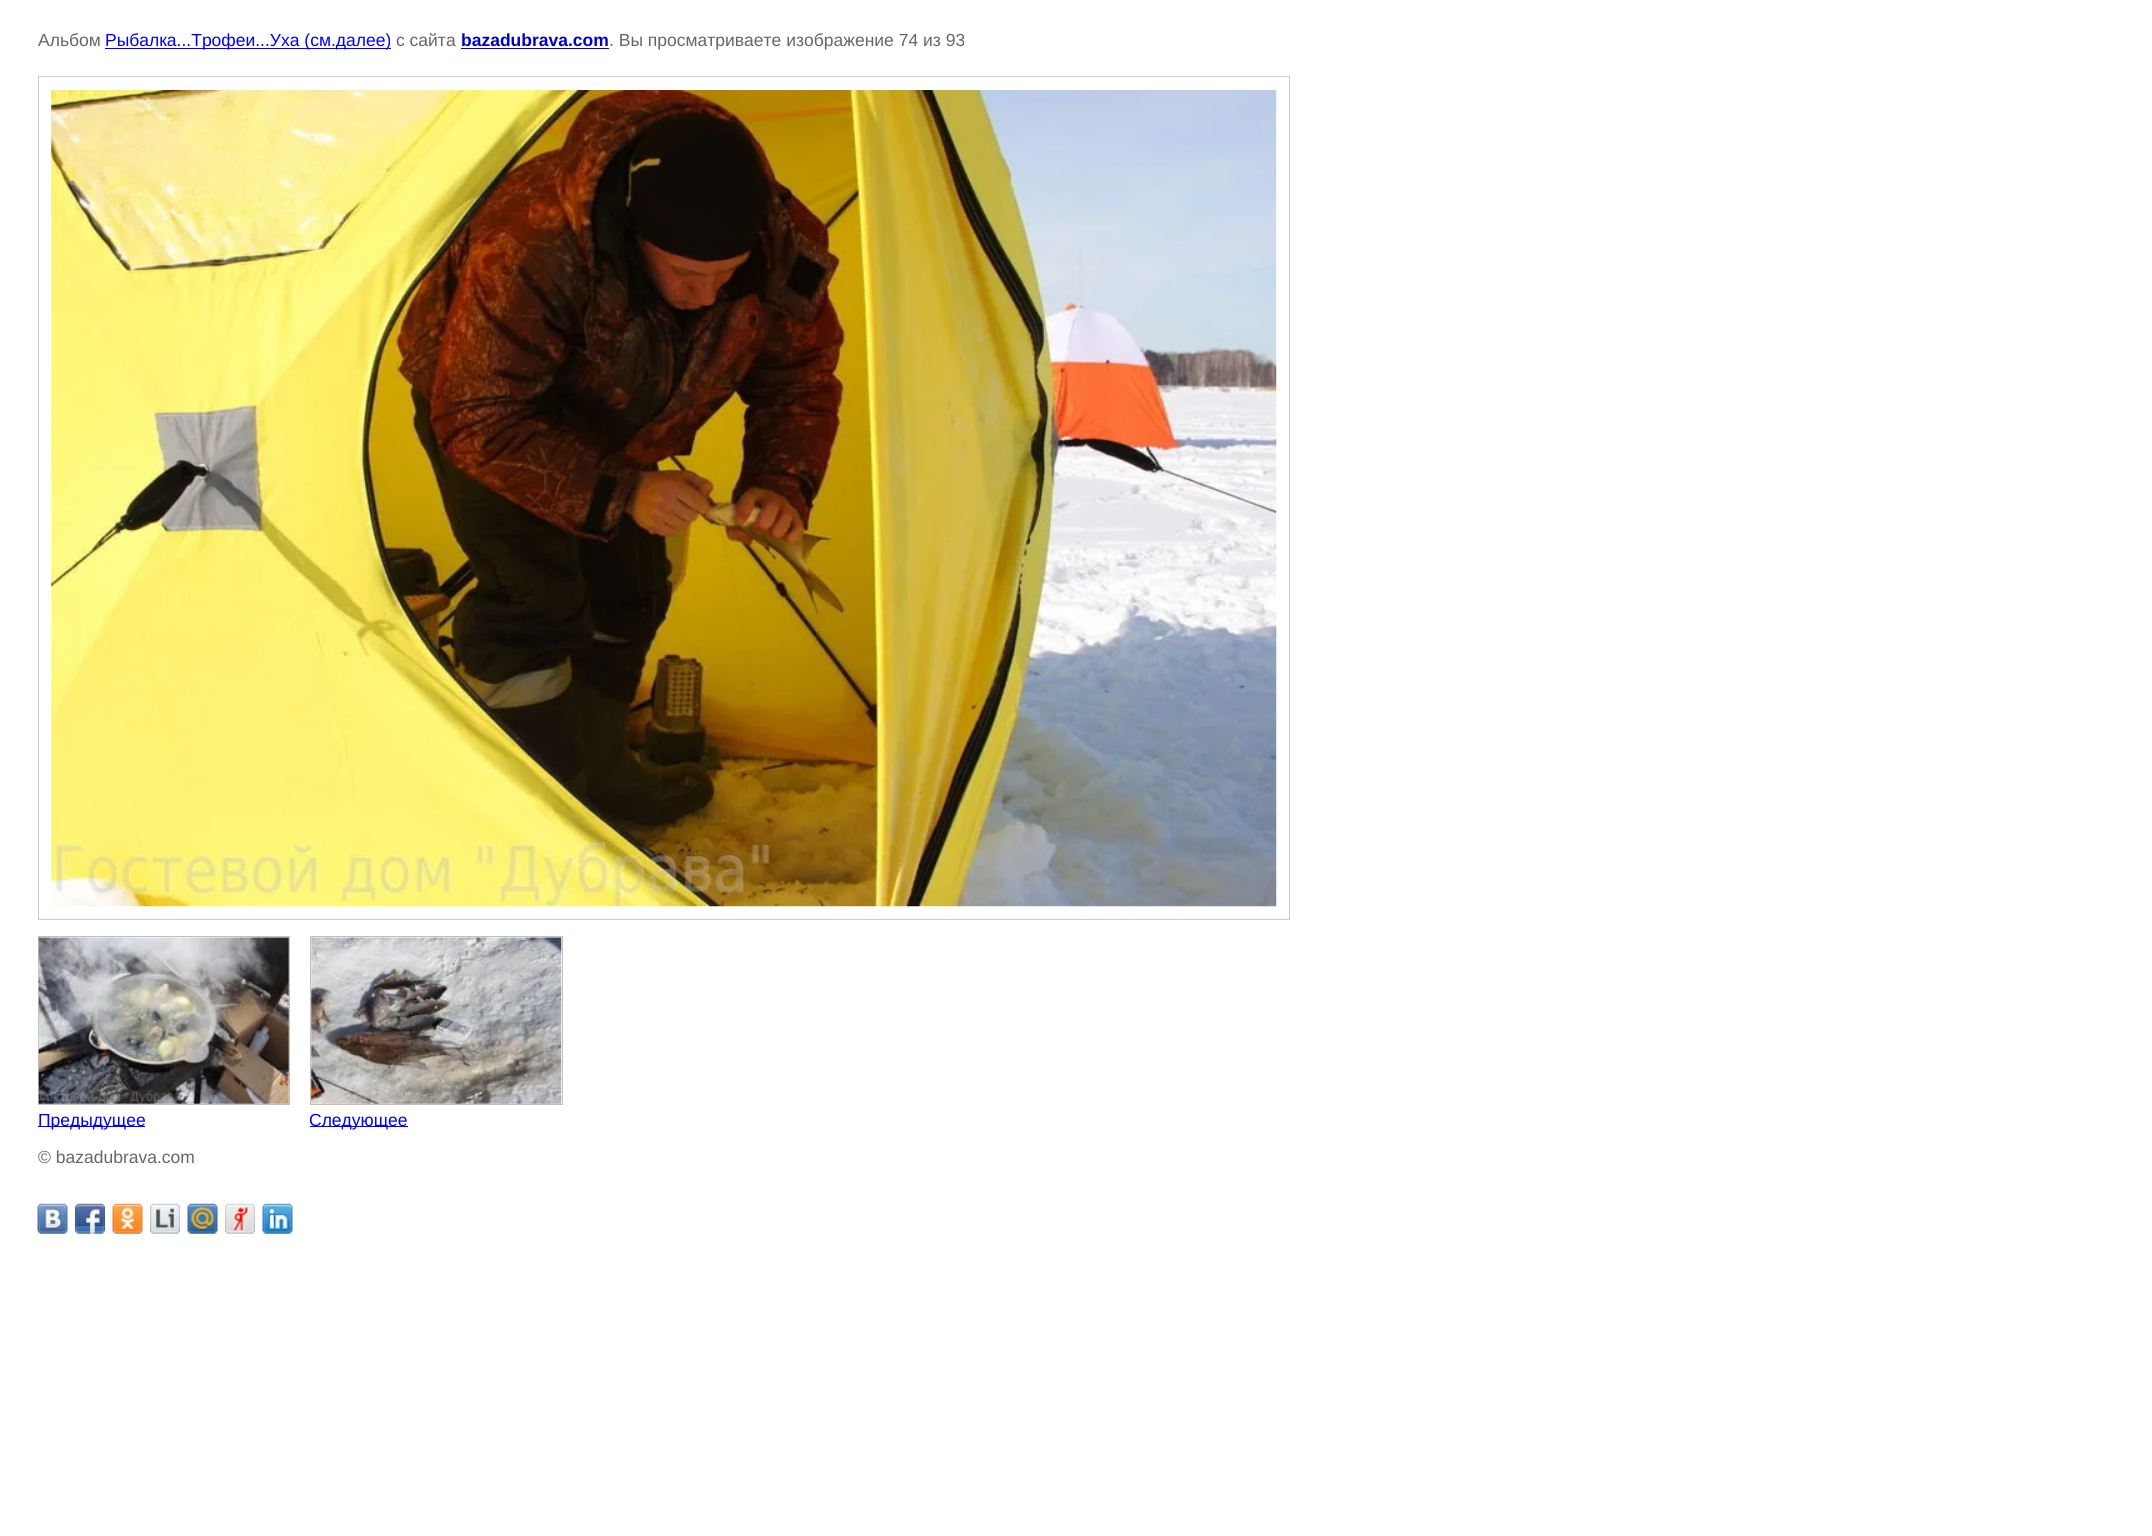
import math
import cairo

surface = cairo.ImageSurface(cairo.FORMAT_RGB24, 2152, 1536)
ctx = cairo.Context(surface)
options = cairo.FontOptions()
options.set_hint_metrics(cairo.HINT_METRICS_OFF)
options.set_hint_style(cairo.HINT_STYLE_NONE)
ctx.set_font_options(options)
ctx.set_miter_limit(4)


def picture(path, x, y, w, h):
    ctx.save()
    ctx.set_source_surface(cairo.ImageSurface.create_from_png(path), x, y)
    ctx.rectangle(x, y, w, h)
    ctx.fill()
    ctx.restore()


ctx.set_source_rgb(1, 1, 1)
ctx.paint()
ctx.select_font_face("Liberation Sans")
ctx.set_font_size(17.5)
ctx.set_source_rgb(0.4, 0.4, 0.4)
ctx.move_to(38, 46)
ctx.show_text("Альбом")
ctx.set_source_rgb(0, 0, 1)
ctx.rectangle(105, 48, 286, 1)
ctx.fill()
ctx.move_to(105, 46)
ctx.show_text("Рыбалка...Трофеи...Уха (см.далее)")
ctx.set_source_rgb(0.4, 0.4, 0.4)
ctx.move_to(396, 46)
ctx.show_text("с сайта")
ctx.select_font_face("Liberation Sans", cairo.FONT_SLANT_NORMAL, cairo.FONT_WEIGHT_BOLD)
ctx.set_source_rgb(0, 0, 0.8)
ctx.move_to(461, 46)
ctx.show_text("bazadubrava.com")
ctx.rectangle(461, 48, 148, 1)
ctx.fill()
ctx.select_font_face("Liberation Sans")
ctx.set_source_rgb(0.4, 0.4, 0.4)
ctx.move_to(609, 46)
ctx.show_text(". Вы просматриваете изображение 74 из 93")
ctx.rectangle(38.5, 76.5, 1251, 843)
ctx.set_source_rgb(0.8, 0.8, 0.8)
ctx.set_line_width(1)
ctx.stroke()
picture("img1.png", 51, 90, 1226, 817)
ctx.rectangle(38.5, 936.5, 251, 168)
ctx.set_source_rgb(0.753, 0.753, 0.753)
ctx.stroke()
picture("img2.png", 38, 937, 251, 167)
ctx.set_source_rgb(0, 0, 1)
ctx.rectangle(38, 1126, 107, 1)
ctx.fill()
ctx.move_to(38, 1126)
ctx.show_text("Предыдущее")
ctx.rectangle(310.5, 936.5, 252, 168)
ctx.set_source_rgb(0.753, 0.753, 0.753)
ctx.stroke()
picture("img3.png", 311, 937, 251, 167)
ctx.set_source_rgb(0, 0, 1)
ctx.rectangle(310, 1126, 98, 1)
ctx.fill()
ctx.move_to(309, 1126)
ctx.show_text("Следующее")
ctx.set_source_rgb(0.4, 0.4, 0.4)
ctx.move_to(38, 1163)
ctx.show_text("© bazadubrava.com")
picture("img4.png", 37, 1203, 31, 31)
picture("img5.png", 75, 1203, 30, 31)
picture("img6.png", 112, 1203, 31, 31)
picture("img7.png", 150, 1203, 30, 31)
picture("img8.png", 187, 1203, 31, 31)
picture("img9.png", 225, 1203, 30, 31)
picture("img10.png", 262, 1203, 31, 31)
surface.write_to_png("page.png")
